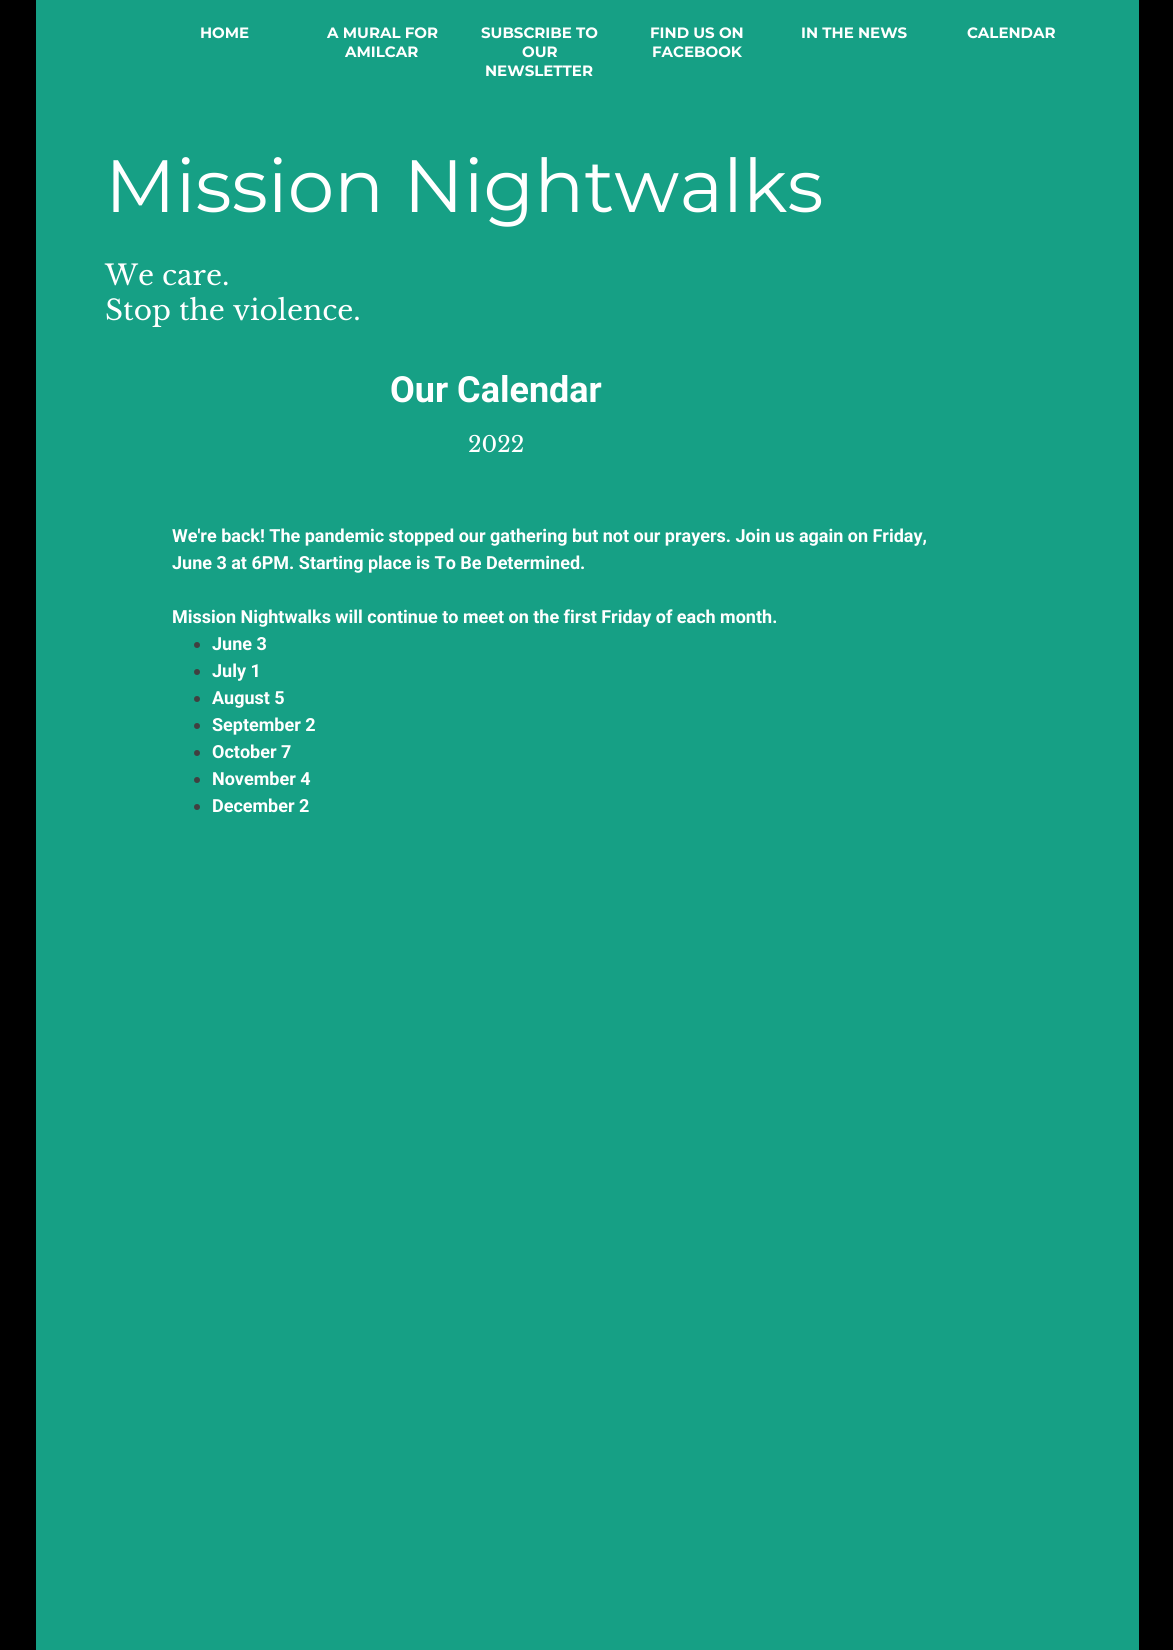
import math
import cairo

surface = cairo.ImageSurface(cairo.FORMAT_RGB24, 1173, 1650)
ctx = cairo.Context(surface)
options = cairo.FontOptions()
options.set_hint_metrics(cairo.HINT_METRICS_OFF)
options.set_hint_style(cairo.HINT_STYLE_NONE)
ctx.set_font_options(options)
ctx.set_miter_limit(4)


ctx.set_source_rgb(0, 0, 0)
ctx.paint()
ctx.set_source_rgb(0.086, 0.627, 0.522)
ctx.rectangle(36, 0, 1103, 1650)
ctx.fill()
ctx.select_font_face("Montserrat", cairo.FONT_SLANT_NORMAL, cairo.FONT_WEIGHT_BOLD)
ctx.set_font_size(15)
ctx.set_source_rgb(1, 1, 1)
ctx.move_to(200, 38)
ctx.show_text("HOME")
ctx.move_to(327, 38)
ctx.show_text("A MURAL FOR")
ctx.move_to(345, 57)
ctx.show_text("AMILCAR")
ctx.move_to(481, 38)
ctx.show_text("SUBSCRIBE TO")
ctx.move_to(522, 57)
ctx.show_text("OUR")
ctx.move_to(485, 76)
ctx.show_text("NEWSLETTER")
ctx.move_to(650, 38)
ctx.show_text("FIND US ON")
ctx.move_to(652, 57)
ctx.show_text("FACEBOOK")
ctx.move_to(801, 38)
ctx.show_text("IN THE NEWS")
ctx.move_to(967, 38)
ctx.show_text("CALENDAR")
ctx.select_font_face("Montserrat")
ctx.set_font_size(74)
ctx.move_to(105, 212)
ctx.show_text("Mission Nightwalks")
ctx.select_font_face("Libre Baskerville")
ctx.set_font_size(28)
ctx.move_to(105, 285)
ctx.show_text("We care.")
ctx.move_to(105, 320)
ctx.show_text("Stop the violence.")
ctx.select_font_face("Roboto", cairo.FONT_SLANT_NORMAL, cairo.FONT_WEIGHT_BOLD)
ctx.set_font_size(36)
ctx.move_to(390, 402)
ctx.show_text("Our Calendar")
ctx.select_font_face("Libre Baskerville")
ctx.set_font_size(22)
ctx.move_to(468, 452)
ctx.show_text("2022")
ctx.select_font_face("Roboto", cairo.FONT_SLANT_NORMAL, cairo.FONT_WEIGHT_BOLD)
ctx.set_font_size(18)
ctx.move_to(172, 542)
ctx.show_text("We're back! The pandemic stopped our gathering but not our prayers. Join us again on Friday,")
ctx.move_to(172, 569)
ctx.show_text("June 3 at 6PM. Starting place is To Be Determined.")
ctx.move_to(172, 623)
ctx.show_text("Mission Nightwalks will continue to meet on the first Friday of each month.")
ctx.set_source_rgb(0.251, 0.251, 0.251)
ctx.new_path()
ctx.arc(197, 645, 3, 0, 2 * math.pi)
ctx.fill()
ctx.set_source_rgb(1, 1, 1)
ctx.move_to(212, 650)
ctx.show_text("June 3")
ctx.set_source_rgb(0.251, 0.251, 0.251)
ctx.new_path()
ctx.arc(197, 672, 3, 0, 2 * math.pi)
ctx.fill()
ctx.set_source_rgb(1, 1, 1)
ctx.move_to(212, 677)
ctx.show_text("July 1")
ctx.set_source_rgb(0.251, 0.251, 0.251)
ctx.new_path()
ctx.arc(197, 699, 3, 0, 2 * math.pi)
ctx.fill()
ctx.set_source_rgb(1, 1, 1)
ctx.move_to(212, 704)
ctx.show_text("August 5")
ctx.set_source_rgb(0.251, 0.251, 0.251)
ctx.new_path()
ctx.arc(197, 726, 3, 0, 2 * math.pi)
ctx.fill()
ctx.set_source_rgb(1, 1, 1)
ctx.move_to(212, 731)
ctx.show_text("September 2")
ctx.set_source_rgb(0.251, 0.251, 0.251)
ctx.new_path()
ctx.arc(197, 753, 3, 0, 2 * math.pi)
ctx.fill()
ctx.set_source_rgb(1, 1, 1)
ctx.move_to(212, 758)
ctx.show_text("October 7")
ctx.set_source_rgb(0.251, 0.251, 0.251)
ctx.new_path()
ctx.arc(197, 780, 3, 0, 2 * math.pi)
ctx.fill()
ctx.set_source_rgb(1, 1, 1)
ctx.move_to(212, 785)
ctx.show_text("November 4")
ctx.set_source_rgb(0.251, 0.251, 0.251)
ctx.new_path()
ctx.arc(197, 807, 3, 0, 2 * math.pi)
ctx.fill()
ctx.set_source_rgb(1, 1, 1)
ctx.move_to(212, 812)
ctx.show_text("December 2")
surface.write_to_png("page.png")
